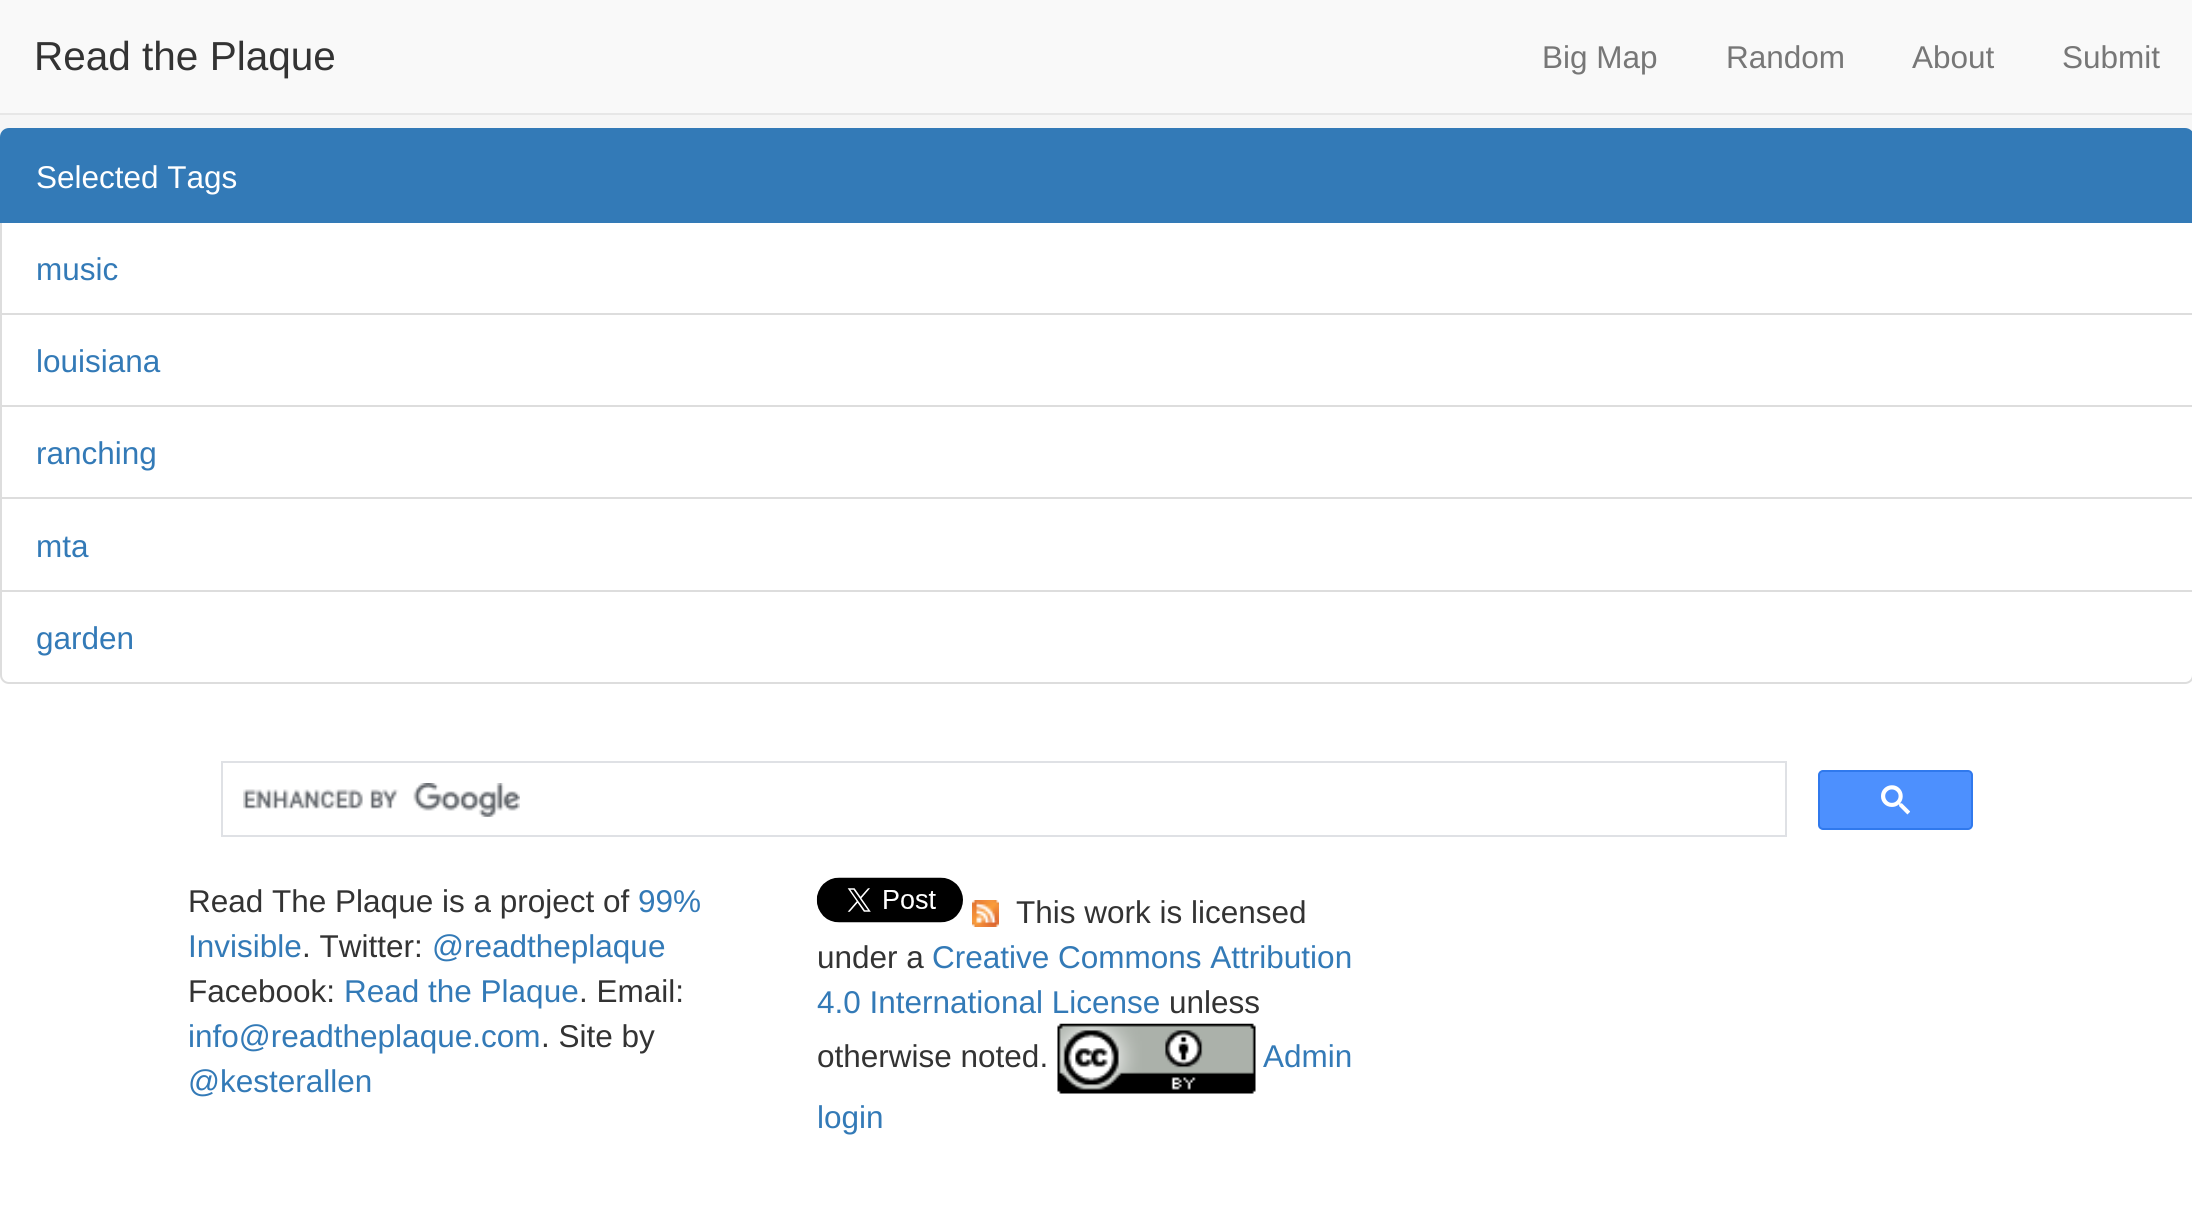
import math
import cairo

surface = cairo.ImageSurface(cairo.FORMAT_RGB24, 2192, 1214)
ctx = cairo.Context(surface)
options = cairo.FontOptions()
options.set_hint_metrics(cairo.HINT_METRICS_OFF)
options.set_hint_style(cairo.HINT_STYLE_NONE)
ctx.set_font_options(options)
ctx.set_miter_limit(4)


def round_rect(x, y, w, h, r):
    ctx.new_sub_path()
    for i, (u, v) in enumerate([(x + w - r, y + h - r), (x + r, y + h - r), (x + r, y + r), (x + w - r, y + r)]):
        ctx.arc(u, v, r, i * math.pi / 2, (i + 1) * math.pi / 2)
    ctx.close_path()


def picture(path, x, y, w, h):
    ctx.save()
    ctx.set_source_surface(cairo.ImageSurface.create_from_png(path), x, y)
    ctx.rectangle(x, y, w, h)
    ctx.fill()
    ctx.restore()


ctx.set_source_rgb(1, 1, 1)
ctx.paint()
ctx.set_source_rgb(0.973, 0.973, 0.973)
ctx.rectangle(0, 0, 2192, 113)
ctx.fill()
ctx.set_source_rgb(0.906, 0.906, 0.906)
ctx.rectangle(0, 113, 2192, 2)
ctx.fill()
ctx.select_font_face("Liberation Sans")
ctx.set_font_size(40.5)
ctx.set_source_rgb(0.2, 0.2, 0.2)
ctx.move_to(34, 70)
ctx.show_text("Read the Plaque")
ctx.set_font_size(31.5)
ctx.set_source_rgb(0.467, 0.467, 0.467)
ctx.move_to(1542, 68)
ctx.show_text("Big Map")
ctx.move_to(1726, 68)
ctx.show_text("Random")
ctx.move_to(1912, 68)
ctx.show_text("About")
ctx.move_to(2062, 68)
ctx.show_text("Submit")
ctx.set_source_rgb(0.961, 0.961, 0.961)
ctx.rectangle(0, 115, 2192, 22)
ctx.fill()
ctx.rectangle(1, 222, 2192, 92)
ctx.set_source_rgb(0.867, 0.867, 0.867)
ctx.stroke()
ctx.set_source_rgb(0.2, 0.478, 0.718)
ctx.new_path()
ctx.move_to(9, 129)
ctx.line_to(2185, 129)
ctx.curve_to(2189.5, 129, 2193, 132.5, 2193, 137)
ctx.line_to(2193, 222)
ctx.line_to(1, 222)
ctx.line_to(1, 137)
ctx.curve_to(1, 132.5, 4.5, 129, 9, 129)
ctx.close_path()
ctx.fill_preserve()
ctx.stroke()
ctx.set_source_rgb(1, 1, 1)
ctx.move_to(36, 188)
ctx.show_text("Selected Tags")
ctx.set_source_rgb(0.2, 0.478, 0.718)
ctx.move_to(36, 280)
ctx.show_text("music")
ctx.rectangle(1, 314, 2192, 92)
ctx.set_source_rgb(0.867, 0.867, 0.867)
ctx.stroke()
ctx.set_source_rgb(0.2, 0.478, 0.718)
ctx.move_to(36, 372)
ctx.show_text("louisiana")
ctx.rectangle(1, 406, 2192, 93)
ctx.set_source_rgb(0.867, 0.867, 0.867)
ctx.stroke()
ctx.set_source_rgb(0.2, 0.478, 0.718)
ctx.move_to(36, 464)
ctx.show_text("ranching")
ctx.set_source_rgb(1, 1, 1)
ctx.rectangle(2, 499, 2190, 1)
ctx.fill()
ctx.rectangle(1, 498, 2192, 93)
ctx.set_source_rgb(0.867, 0.867, 0.867)
ctx.stroke()
ctx.set_source_rgb(0.2, 0.478, 0.718)
ctx.move_to(36, 557)
ctx.show_text("mta")
ctx.set_source_rgb(1, 1, 1)
ctx.new_path()
ctx.move_to(1, 591)
ctx.line_to(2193, 591)
ctx.line_to(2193, 675)
ctx.curve_to(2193, 679.5, 2189.5, 683, 2185, 683)
ctx.line_to(9, 683)
ctx.curve_to(4.5, 683, 1, 679.5, 1, 675)
ctx.close_path()
ctx.fill_preserve()
ctx.set_source_rgb(0.867, 0.867, 0.867)
ctx.stroke()
ctx.set_source_rgb(0.2, 0.478, 0.718)
ctx.move_to(36, 649)
ctx.show_text("garden")
ctx.rectangle(222, 762, 1564, 74)
ctx.set_source_rgb(0.875, 0.882, 0.898)
ctx.stroke()
picture("img1.png", 243, 783, 277, 34)
ctx.set_source_rgb(0.302, 0.565, 0.996)
round_rect(1819, 771, 153, 58, 4)
ctx.fill_preserve()
ctx.set_source_rgb(0.188, 0.475, 0.929)
ctx.stroke()
picture("img2.png", 1881, 785, 29, 30)
ctx.set_source_rgb(0.2, 0.2, 0.2)
ctx.move_to(188, 912)
ctx.show_text("Read The Plaque is a project of")
ctx.set_source_rgb(0.2, 0.478, 0.718)
ctx.move_to(638, 912)
ctx.show_text("99%")
ctx.move_to(188, 957)
ctx.show_text("Invisible")
ctx.set_source_rgb(0.2, 0.2, 0.2)
ctx.move_to(302, 957)
ctx.show_text(". Twitter:")
ctx.set_source_rgb(0.2, 0.478, 0.718)
ctx.move_to(432, 957)
ctx.show_text("@readtheplaque")
ctx.set_source_rgb(0.2, 0.2, 0.2)
ctx.move_to(188, 1002)
ctx.show_text("Facebook:")
ctx.set_source_rgb(0.2, 0.478, 0.718)
ctx.move_to(344, 1002)
ctx.show_text("Read the Plaque")
ctx.set_source_rgb(0.2, 0.2, 0.2)
ctx.move_to(579, 1002)
ctx.show_text(". Email:")
ctx.set_source_rgb(0.2, 0.478, 0.718)
ctx.move_to(188, 1047)
ctx.show_text("info@readtheplaque.com")
ctx.set_source_rgb(0.2, 0.2, 0.2)
ctx.move_to(541, 1047)
ctx.show_text(". Site by")
ctx.set_source_rgb(0.2, 0.478, 0.718)
ctx.move_to(188, 1092)
ctx.show_text("@kesterallen")
picture("img3.png", 816, 877, 147, 46)
picture("img4.png", 972, 900, 27, 27)
ctx.set_source_rgb(0.2, 0.2, 0.2)
ctx.move_to(1016, 923)
ctx.show_text("This work is licensed")
ctx.move_to(817, 968)
ctx.show_text("under a")
ctx.set_source_rgb(0.2, 0.478, 0.718)
ctx.move_to(932, 968)
ctx.show_text("Creative Commons Attribution")
ctx.move_to(817, 1013)
ctx.show_text("4.0 International License")
ctx.set_source_rgb(0.2, 0.2, 0.2)
ctx.move_to(1169, 1013)
ctx.show_text("unless")
ctx.move_to(817, 1067)
ctx.show_text("otherwise noted.")
picture("img5.png", 1057, 1023, 199, 71)
ctx.set_source_rgb(0.2, 0.478, 0.718)
ctx.move_to(1263, 1067)
ctx.show_text("Admin")
ctx.move_to(817, 1128)
ctx.show_text("login")
surface.write_to_png("page.png")
